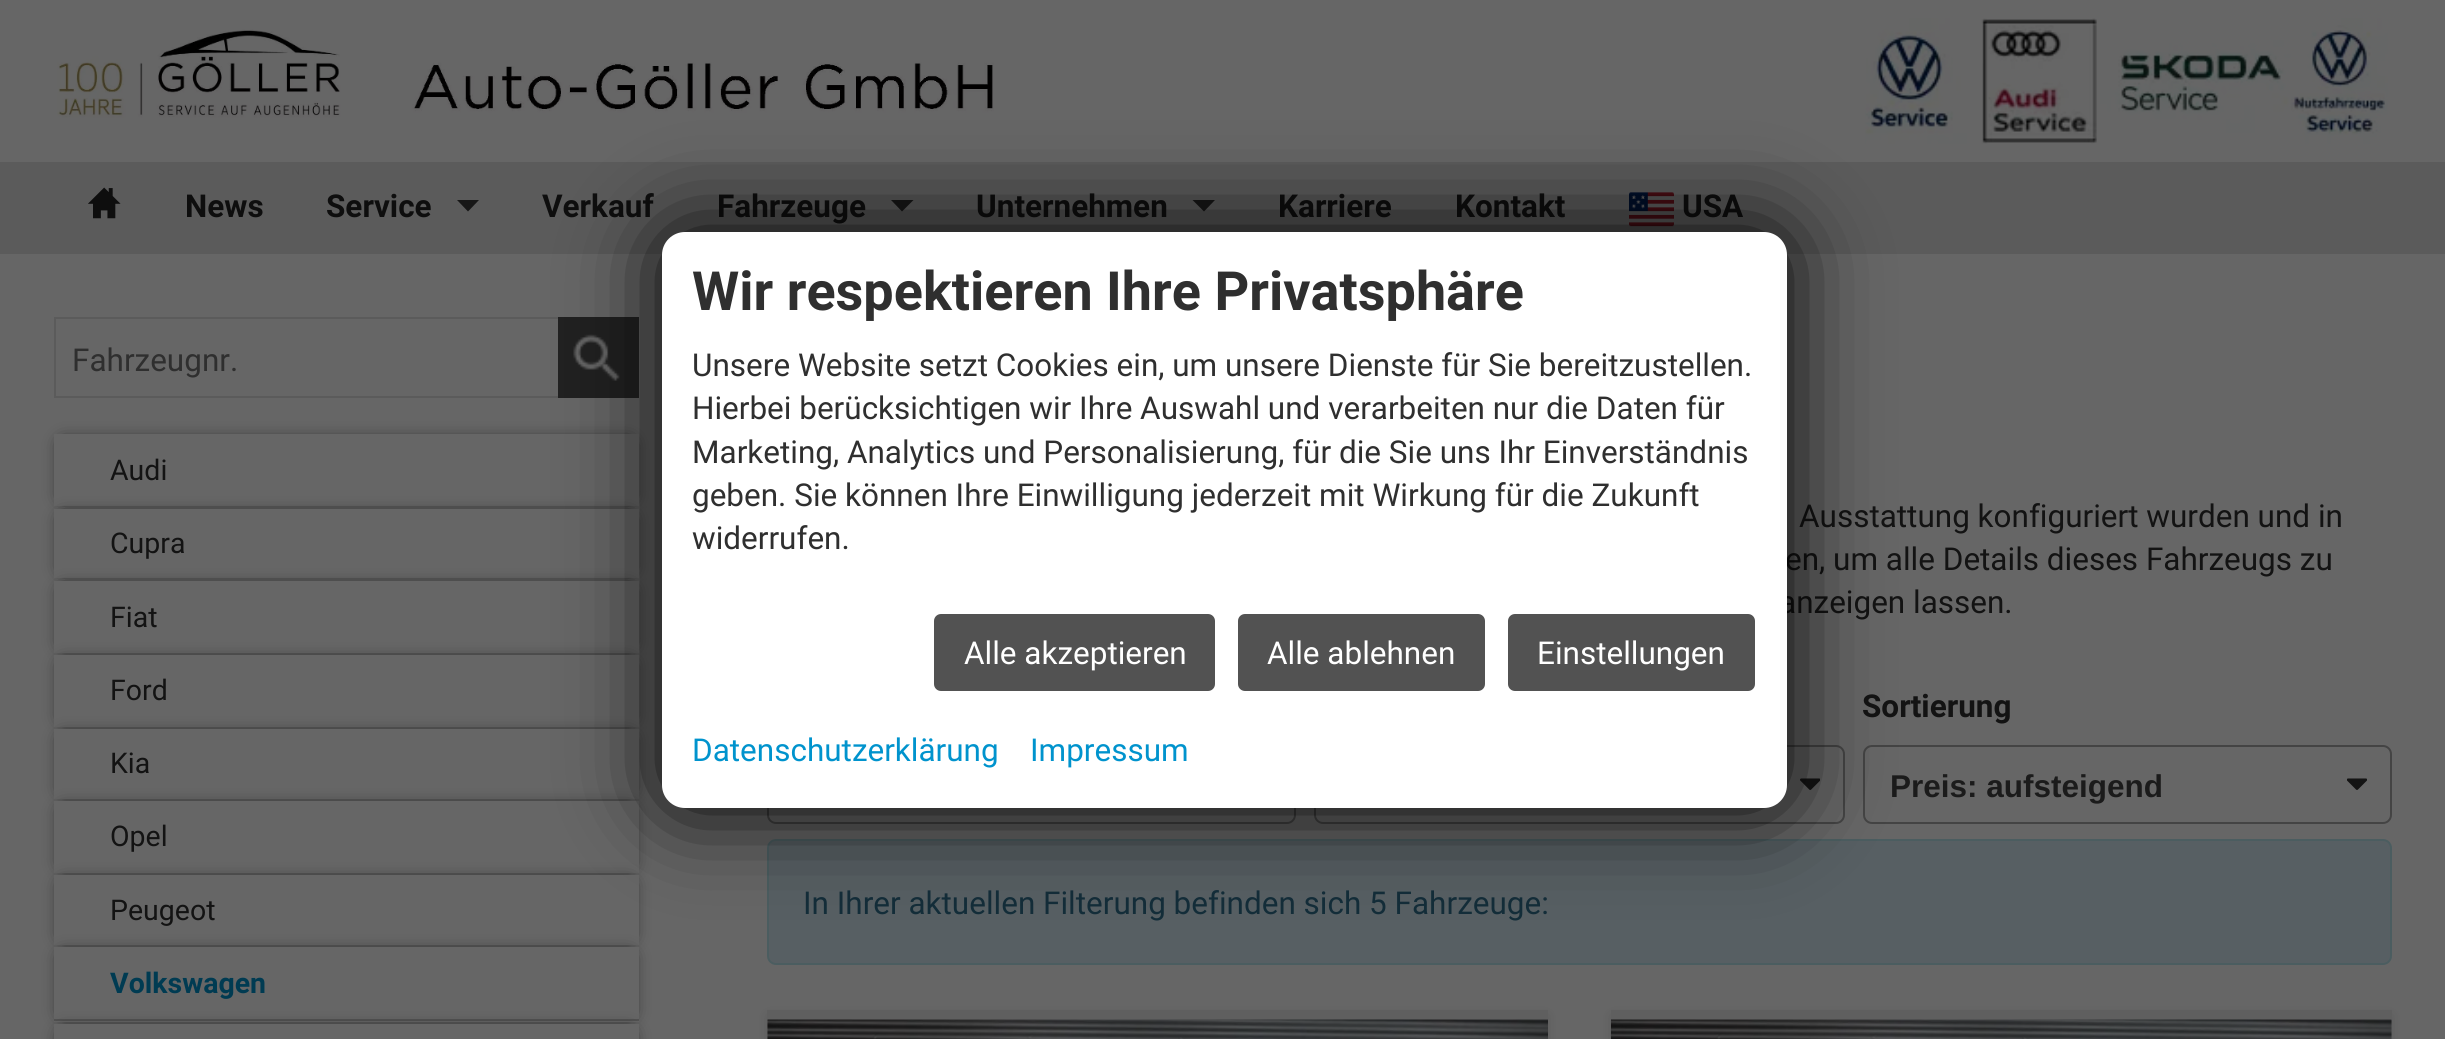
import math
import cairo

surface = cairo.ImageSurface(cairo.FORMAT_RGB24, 2445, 1039)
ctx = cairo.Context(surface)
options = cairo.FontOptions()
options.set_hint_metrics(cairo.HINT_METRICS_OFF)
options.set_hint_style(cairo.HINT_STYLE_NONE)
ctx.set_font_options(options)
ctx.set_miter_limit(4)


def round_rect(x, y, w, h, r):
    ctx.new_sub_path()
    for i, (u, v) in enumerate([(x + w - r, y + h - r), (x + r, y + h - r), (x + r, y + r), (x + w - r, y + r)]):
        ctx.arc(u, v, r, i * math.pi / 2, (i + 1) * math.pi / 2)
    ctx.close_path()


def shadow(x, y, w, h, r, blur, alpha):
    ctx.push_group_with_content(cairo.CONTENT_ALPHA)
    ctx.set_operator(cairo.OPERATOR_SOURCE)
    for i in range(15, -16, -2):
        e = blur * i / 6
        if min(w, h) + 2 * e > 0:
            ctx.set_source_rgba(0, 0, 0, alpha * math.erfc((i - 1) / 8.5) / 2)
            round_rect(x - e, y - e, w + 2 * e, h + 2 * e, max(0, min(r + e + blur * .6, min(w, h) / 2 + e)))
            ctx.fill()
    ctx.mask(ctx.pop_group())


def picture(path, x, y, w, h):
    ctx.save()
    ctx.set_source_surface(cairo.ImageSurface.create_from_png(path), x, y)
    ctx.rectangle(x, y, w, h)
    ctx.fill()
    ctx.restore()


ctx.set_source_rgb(0.4, 0.4, 0.4)
ctx.paint()
picture("img1.png", 57, 29, 937, 89)
picture("img2.png", 1865, 18, 523, 126)
ctx.set_source_rgb(0.357, 0.357, 0.357)
ctx.rectangle(0, 162, 2445, 92)
ctx.fill()
picture("img3.png", 88, 187, 33, 32)
ctx.select_font_face("Roboto", cairo.FONT_SLANT_NORMAL, cairo.FONT_WEIGHT_BOLD)
ctx.set_font_size(31.5)
ctx.set_source_rgb(0.055, 0.055, 0.055)
ctx.move_to(185, 217)
ctx.show_text("News")
ctx.move_to(326, 217)
ctx.show_text("Service")
ctx.set_source_rgb(0.09, 0.09, 0.09)
ctx.new_path()
ctx.move_to(457, 200)
ctx.line_to(479, 200)
ctx.line_to(468, 211.5)
ctx.close_path()
ctx.fill()
ctx.set_source_rgb(0.055, 0.055, 0.055)
ctx.move_to(542, 217)
ctx.show_text("Verkauf")
ctx.move_to(717, 217)
ctx.show_text("Fahrzeuge")
ctx.set_source_rgb(0.09, 0.09, 0.09)
ctx.new_path()
ctx.move_to(891, 200)
ctx.line_to(913.5, 200)
ctx.line_to(902, 211.5)
ctx.close_path()
ctx.fill()
ctx.set_source_rgb(0.055, 0.055, 0.055)
ctx.move_to(976, 217)
ctx.show_text("Unternehmen")
ctx.set_source_rgb(0.09, 0.09, 0.09)
ctx.new_path()
ctx.move_to(1192.5, 200)
ctx.line_to(1215, 200)
ctx.line_to(1204, 211.5)
ctx.close_path()
ctx.fill()
ctx.set_source_rgb(0.055, 0.055, 0.055)
ctx.move_to(1278, 217)
ctx.show_text("Karriere")
ctx.move_to(1455, 217)
ctx.show_text("Kontakt")
picture("img4.png", 1629, 192, 45, 35)
ctx.move_to(1682, 217)
ctx.show_text("USA")
ctx.rectangle(55, 318, 583, 79)
ctx.set_source_rgb(0.357, 0.357, 0.357)
ctx.stroke()
ctx.select_font_face("Roboto")
ctx.set_source_rgb(0.184, 0.184, 0.184)
ctx.move_to(72, 371)
ctx.show_text("Fahrzeugnr.")
ctx.set_source_rgb(0.129, 0.129, 0.129)
ctx.rectangle(558, 317, 81, 81)
ctx.fill()
picture("img5.png", 573, 334, 47, 47)
ctx.set_source_rgb(0, 0, 0)
shadow(63, 443, 567, 54, 0, 9, 1)
ctx.set_source_rgb(0.4, 0.4, 0.4)
ctx.rectangle(54, 434, 585, 72)
ctx.fill()
ctx.set_font_size(28.5)
ctx.set_source_rgb(0.078, 0.078, 0.078)
ctx.move_to(110, 480)
ctx.show_text("Audi")
ctx.set_source_rgb(0, 0, 0)
shadow(63, 518, 567, 51, 0, 9, 1)
ctx.set_source_rgb(0.4, 0.4, 0.4)
ctx.rectangle(54, 509, 585, 69)
ctx.fill()
ctx.set_source_rgb(0.078, 0.078, 0.078)
ctx.move_to(110, 553)
ctx.show_text("Cupra")
ctx.set_source_rgb(0, 0, 0)
shadow(63, 590, 567, 54, 0, 9, 1)
ctx.set_source_rgb(0.4, 0.4, 0.4)
ctx.rectangle(54, 581, 585, 72)
ctx.fill()
ctx.set_source_rgb(0.078, 0.078, 0.078)
ctx.move_to(110, 627)
ctx.show_text("Fiat")
ctx.set_source_rgb(0, 0, 0)
shadow(63, 664, 567, 54, 0, 9, 1)
ctx.set_source_rgb(0.4, 0.4, 0.4)
ctx.rectangle(54, 655, 585, 72)
ctx.fill()
ctx.set_source_rgb(0.078, 0.078, 0.078)
ctx.move_to(110, 700)
ctx.show_text("Ford")
ctx.set_source_rgb(0, 0, 0)
shadow(63, 738, 567, 52, 0, 9, 1)
ctx.set_source_rgb(0.4, 0.4, 0.4)
ctx.rectangle(54, 729, 585, 70)
ctx.fill()
ctx.set_source_rgb(0.078, 0.078, 0.078)
ctx.move_to(110, 773)
ctx.show_text("Kia")
ctx.set_source_rgb(0, 0, 0)
shadow(63, 810, 567, 54, 0, 9, 1)
ctx.set_source_rgb(0.4, 0.4, 0.4)
ctx.rectangle(54, 801, 585, 72)
ctx.fill()
ctx.set_source_rgb(0.078, 0.078, 0.078)
ctx.move_to(110, 846)
ctx.show_text("Opel")
ctx.set_source_rgb(0, 0, 0)
shadow(63, 884, 567, 52, 0, 9, 1)
ctx.set_source_rgb(0.4, 0.4, 0.4)
ctx.rectangle(54, 875, 585, 70)
ctx.fill()
ctx.set_source_rgb(0.078, 0.078, 0.078)
ctx.move_to(110, 920)
ctx.show_text("Peugeot")
ctx.set_source_rgb(0, 0, 0)
shadow(63, 956, 567, 57, 0, 9, 1)
ctx.set_source_rgb(0.4, 0.4, 0.4)
ctx.rectangle(54, 947, 585, 75)
ctx.fill()
ctx.set_source_rgb(0.322, 0.322, 0.322)
ctx.rectangle(54, 1019, 585, 2)
ctx.fill()
ctx.select_font_face("Roboto", cairo.FONT_SLANT_NORMAL, cairo.FONT_WEIGHT_BOLD)
ctx.set_source_rgb(0, 0.231, 0.322)
ctx.move_to(110, 993)
ctx.show_text("Volkswagen")
ctx.set_source_rgb(0, 0, 0)
shadow(63, 1033, 567, 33, 0, 9, 1)
ctx.set_source_rgb(0.4, 0.4, 0.4)
ctx.rectangle(54, 1024, 585, 15)
ctx.fill()
ctx.select_font_face("Roboto")
ctx.set_font_size(31.5)
ctx.set_source_rgb(0.078, 0.078, 0.078)
ctx.move_to(1799, 527)
ctx.show_text("Ausstattung konfiguriert wurden und in")
ctx.move_to(1785, 570)
ctx.show_text("en, um alle Details dieses Fahrzeugs zu")
ctx.move_to(1779, 613)
ctx.show_text("anzeigen lassen.")
round_rect(768, 746, 527, 77, 8)
ctx.set_source_rgb(0.267, 0.267, 0.267)
ctx.stroke()
picture("img6.png", 1800, 778, 20, 12)
round_rect(1315, 746, 529, 77, 8)
ctx.stroke()
ctx.select_font_face("Roboto", cairo.FONT_SLANT_NORMAL, cairo.FONT_WEIGHT_BOLD)
ctx.set_source_rgb(0.078, 0.078, 0.078)
ctx.move_to(1862, 717)
ctx.show_text("Sortierung")
picture("img7.png", 2347, 778, 20, 12)
round_rect(1864, 746, 527, 77, 8)
ctx.set_source_rgb(0.267, 0.267, 0.267)
ctx.stroke()
ctx.select_font_face("Liberation Sans", cairo.FONT_SLANT_NORMAL, cairo.FONT_WEIGHT_BOLD)
ctx.set_source_rgb(0.106, 0.106, 0.106)
ctx.move_to(1890, 797)
ctx.show_text("Preis: aufsteigend")
ctx.set_source_rgb(0.341, 0.373, 0.388)
round_rect(768, 840, 1623, 124, 8)
ctx.fill_preserve()
ctx.set_source_rgb(0.294, 0.365, 0.376)
ctx.stroke()
ctx.select_font_face("Roboto")
ctx.set_source_rgb(0.078, 0.176, 0.224)
ctx.move_to(803, 914)
ctx.show_text("In Ihrer aktuellen Filterung befinden sich 5 Fahrzeuge:")
ctx.set_source_rgb(0, 0, 0)
shadow(767, 1015, 781, 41, 0, 5.5, 0.1)
ctx.set_source_rgb(0.4, 0.4, 0.4)
ctx.rectangle(767, 1019, 781, 20)
ctx.fill()
ctx.set_source_rgb(0.373, 0.373, 0.373)
ctx.rectangle(767, 1010, 781, 9)
ctx.fill()
picture("img8.png", 767, 1019, 781, 20)
ctx.set_source_rgb(0, 0, 0)
shadow(1611, 1015, 781, 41, 0, 5.5, 0.1)
ctx.set_source_rgb(0.4, 0.4, 0.4)
ctx.rectangle(1611, 1019, 781, 20)
ctx.fill()
ctx.set_source_rgb(0.373, 0.373, 0.373)
ctx.rectangle(1611, 1010, 781, 9)
ctx.fill()
picture("img9.png", 1611, 1019, 781, 20)
ctx.set_source_rgb(0, 0, 0)
shadow(662, 232, 1125, 576, 23, 45, 1)
ctx.set_source_rgb(1, 1, 1)
round_rect(662, 232, 1125, 576, 23)
ctx.fill()
ctx.select_font_face("Roboto", cairo.FONT_SLANT_NORMAL, cairo.FONT_WEIGHT_BOLD)
ctx.set_font_size(54)
ctx.set_source_rgb(0.184, 0.184, 0.184)
ctx.move_to(692, 310)
ctx.show_text("Wir respektieren Ihre Privatsphäre")
ctx.select_font_face("Roboto")
ctx.set_font_size(31.5)
ctx.move_to(692, 376)
ctx.show_text("Unsere Website setzt Cookies ein, um unsere Dienste für Sie bereitzustellen.")
ctx.move_to(692, 419)
ctx.show_text("Hierbei berücksichtigen wir Ihre Auswahl und verarbeiten nur die Daten für")
ctx.move_to(692, 463)
ctx.show_text("Marketing, Analytics und Personalisierung, für die Sie uns Ihr Einverständnis")
ctx.move_to(692, 506)
ctx.show_text("geben. Sie können Ihre Einwilligung jederzeit mit Wirkung für die Zukunft")
ctx.move_to(692, 549)
ctx.show_text("widerrufen.")
ctx.set_source_rgb(0.322, 0.322, 0.322)
round_rect(935, 615, 279, 75, 6)
ctx.fill_preserve()
ctx.stroke()
ctx.set_source_rgb(1, 1, 1)
ctx.move_to(964, 664)
ctx.show_text("Alle akzeptieren")
ctx.set_source_rgb(0.322, 0.322, 0.322)
round_rect(1239, 615, 245, 75, 6)
ctx.fill_preserve()
ctx.stroke()
ctx.set_source_rgb(1, 1, 1)
ctx.move_to(1267, 664)
ctx.show_text("Alle ablehnen")
ctx.set_source_rgb(0.322, 0.322, 0.322)
round_rect(1509, 615, 245, 75, 6)
ctx.fill_preserve()
ctx.stroke()
ctx.set_source_rgb(1, 1, 1)
ctx.move_to(1537, 664)
ctx.show_text("Einstellungen")
ctx.set_source_rgb(0, 0.576, 0.804)
ctx.move_to(692, 761)
ctx.show_text("Datenschutzerklärung")
ctx.move_to(1030, 761)
ctx.show_text("Impressum")
surface.write_to_png("page.png")
